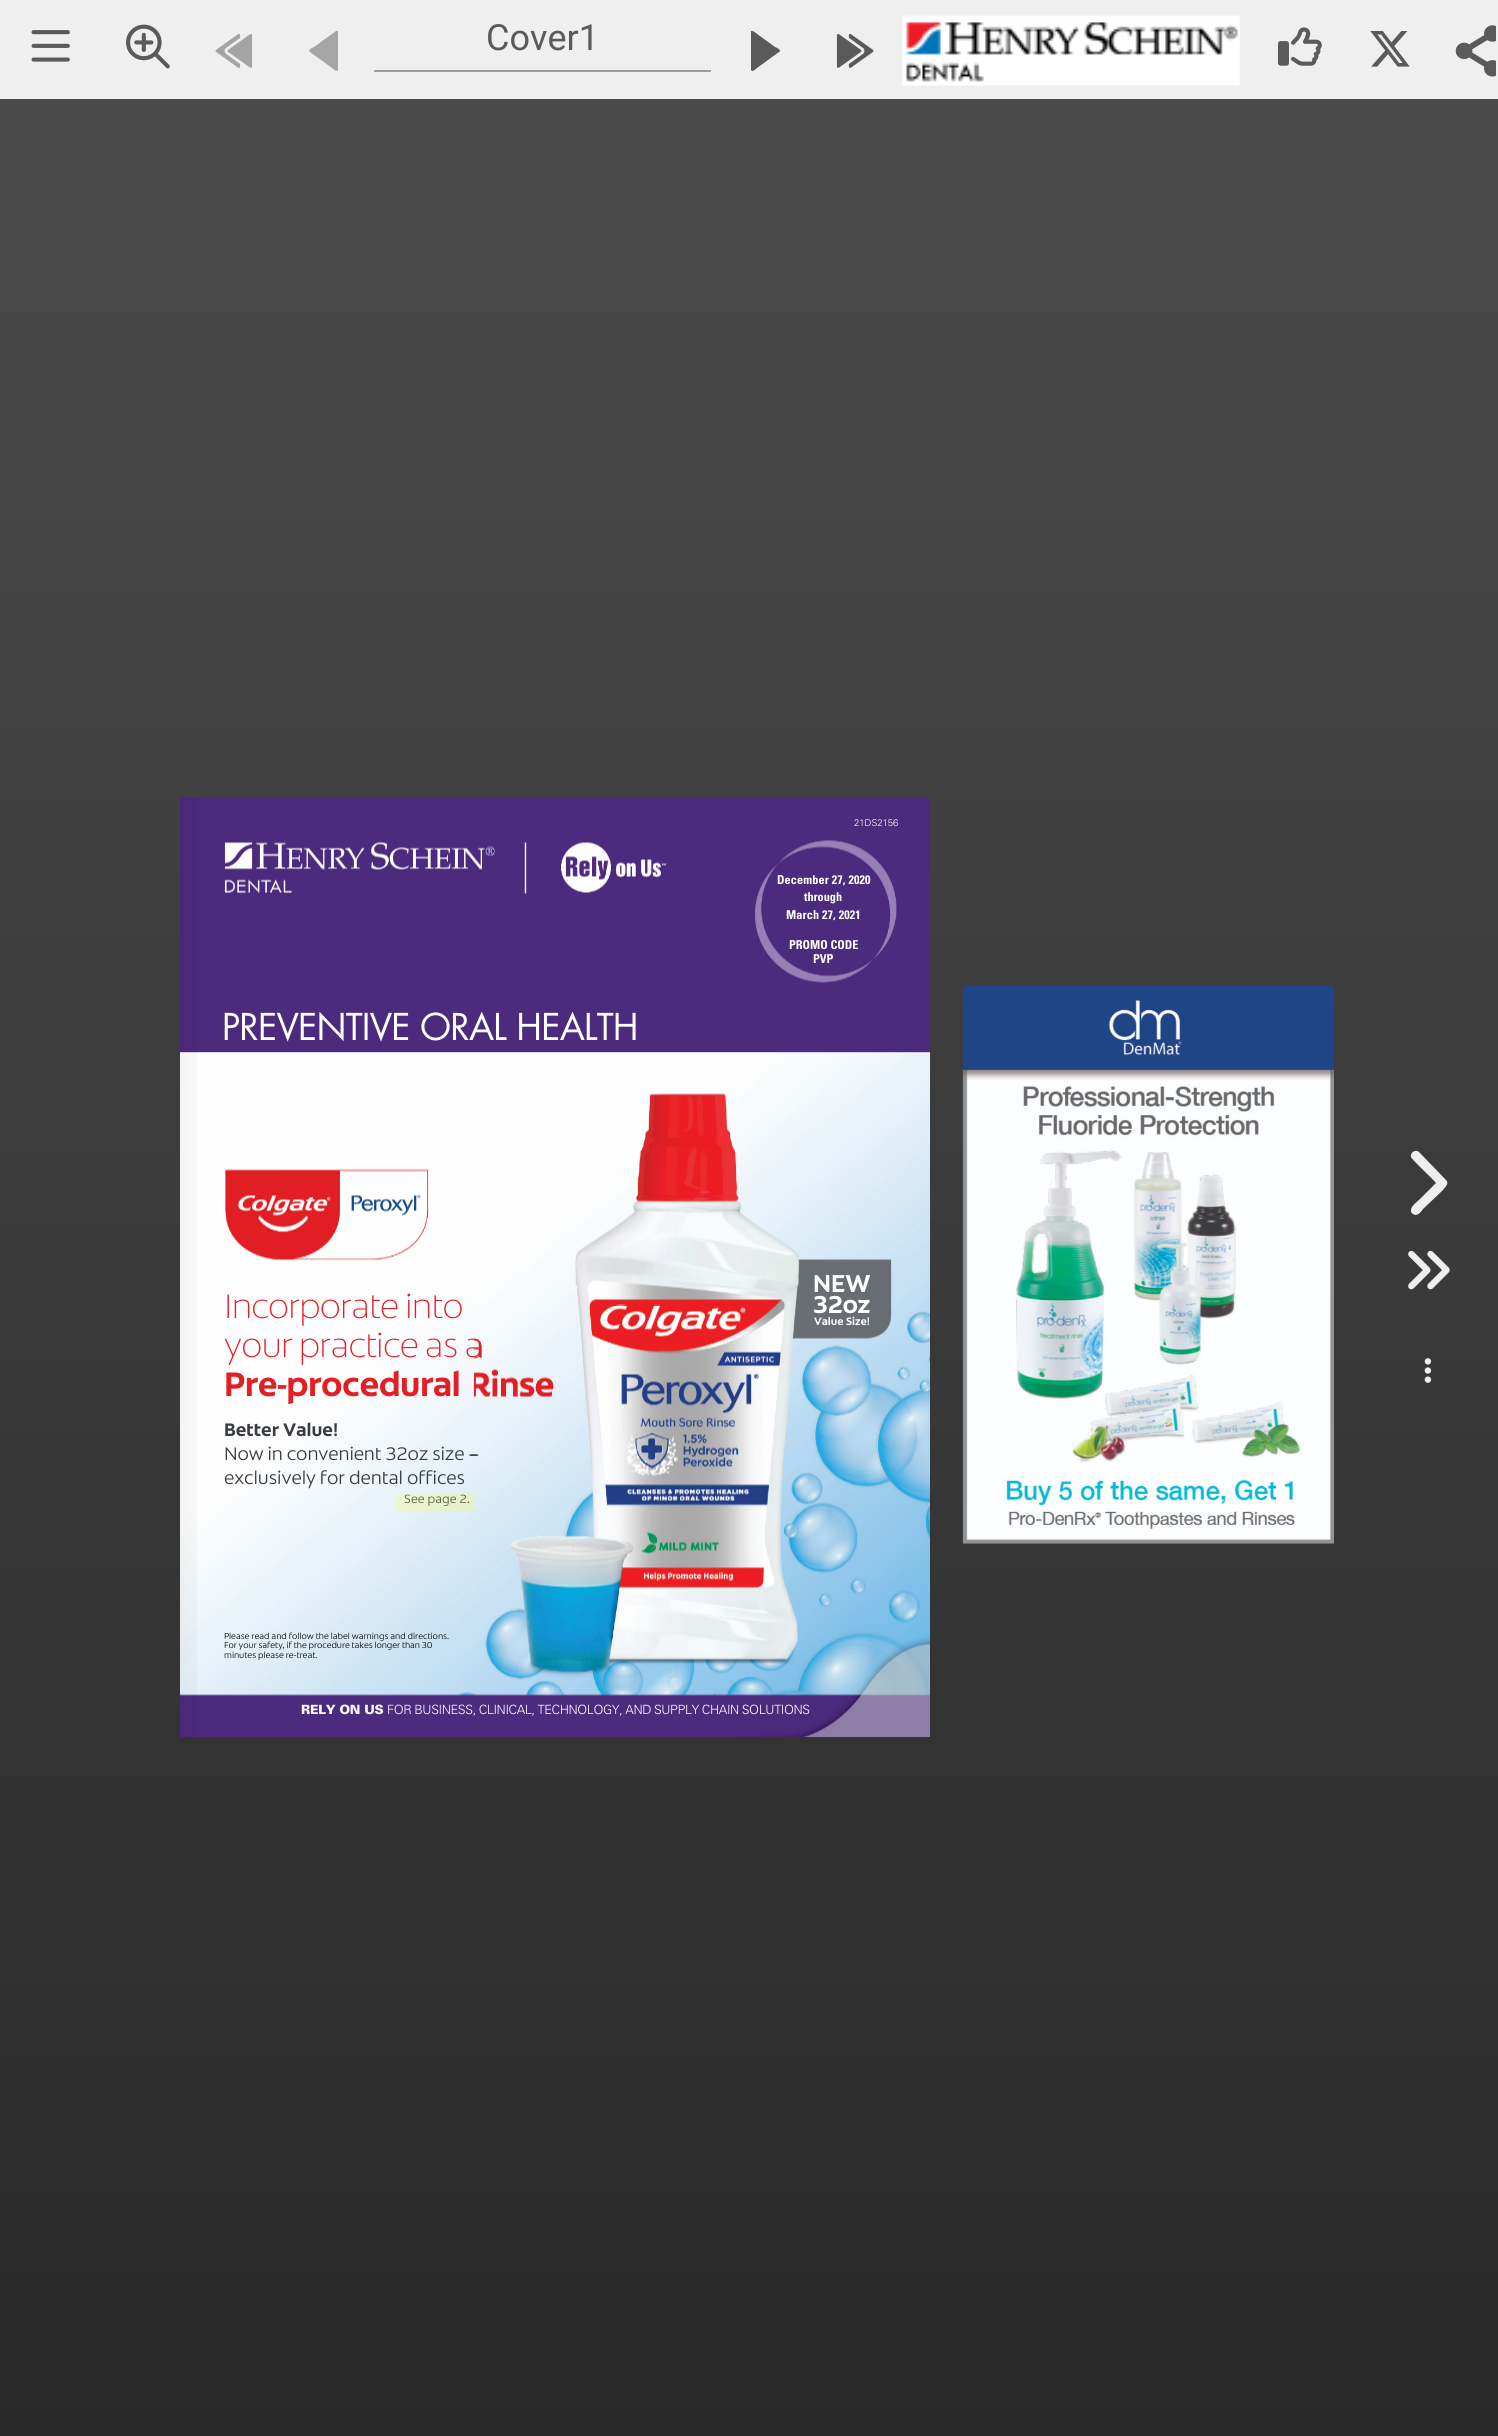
import math
import cairo

surface = cairo.ImageSurface(cairo.FORMAT_RGB24, 1498, 2436)
ctx = cairo.Context(surface)
options = cairo.FontOptions()
options.set_hint_metrics(cairo.HINT_METRICS_OFF)
options.set_hint_style(cairo.HINT_STYLE_NONE)
ctx.set_font_options(options)
ctx.set_miter_limit(4)


def spaced_text(x, y, s, letter, word):
    ctx.move_to(x, y)
    for ch in s:
        ctx.show_text(ch)
        ctx.rel_move_to(letter + word * (ch == ' '), 0)


def picture(path, x, y, w, h):
    ctx.save()
    ctx.set_source_surface(cairo.ImageSurface.create_from_png(path), x, y)
    ctx.rectangle(x, y, w, h)
    ctx.fill()
    ctx.restore()


ctx.set_source_rgb(1, 1, 1)
ctx.paint()
gradient = cairo.LinearGradient(749, 0, 749, 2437)
gradient.add_color_stop_rgba(0, 0.298, 0.298, 0.298, 1)
gradient.add_color_stop_rgba(1, 0.161, 0.161, 0.161, 1)
ctx.set_source(gradient)
ctx.rectangle(0, 99, 1498, 2337)
ctx.fill()
ctx.set_source_rgb(0.937, 0.937, 0.937)
ctx.rectangle(0, 0, 1498, 99)
ctx.fill()
picture("img1.png", 31, 30, 39, 32)
picture("img2.png", 126, 24, 44, 45)
picture("img3.png", 215, 33, 38, 35)
ctx.set_source_rgb(0.647, 0.647, 0.647)
ctx.new_path()
ctx.move_to(310, 52)
ctx.line_to(332, 68)
ctx.curve_to(332, 68, 337, 73, 338, 70)
ctx.line_to(338, 32)
ctx.line_to(338, 31)
ctx.line_to(336, 31)
ctx.line_to(314, 47)
ctx.curve_to(311, 48, 307, 51, 310, 52)
ctx.close_path()
ctx.fill()
ctx.set_source_rgb(0.62, 0.62, 0.62)
ctx.rectangle(374, 70, 337, 2)
ctx.fill()
ctx.select_font_face("Roboto")
ctx.set_font_size(36)
ctx.set_source_rgb(0.353, 0.353, 0.353)
ctx.move_to(486, 50)
ctx.show_text("Cover1")
ctx.new_path()
ctx.move_to(779, 52)
ctx.line_to(757, 68)
ctx.curve_to(757, 68, 752, 73, 751, 70)
ctx.line_to(751, 32)
ctx.line_to(751, 31)
ctx.line_to(753, 31)
ctx.line_to(775, 47)
ctx.curve_to(778, 48, 782, 51, 779, 52)
ctx.close_path()
ctx.fill()
picture("img4.png", 836, 33, 38, 35)
picture("img5.png", 902, 15, 338, 71)
picture("img6.png", 1278, 27, 44, 39)
picture("img7.png", 1370, 31, 40, 36)
picture("img8.png", 1455, 25, 41, 52)
picture("img9.png", 180, 797, 750, 940)
gradient = cairo.LinearGradient(929, 1268, 180, 1268)
gradient.add_color_stop_rgba(0.95, 0, 0, 0, 0)
gradient.add_color_stop_rgba(1, 0, 0, 0, 0.04)
ctx.set_source(gradient)
ctx.rectangle(180, 797, 17, 940)
ctx.fill()
ctx.select_font_face("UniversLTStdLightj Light")
ctx.set_font_size(9.5)
ctx.set_source_rgb(1, 1, 1)
ctx.move_to(854, 826)
ctx.show_text("21DS2156")
ctx.select_font_face("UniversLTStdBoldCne", cairo.FONT_SLANT_NORMAL, cairo.FONT_WEIGHT_BOLD)
ctx.set_font_size(12.25)
spaced_text(777, 884, "December 27, 2020", 0.1, 0)
ctx.move_to(804, 901)
ctx.show_text("through")
spaced_text(786, 919, "March 27, 2021", 0.1, 0)
ctx.move_to(789, 949)
ctx.show_text("PROMO CODE")
ctx.move_to(813, 963)
ctx.show_text("PVP")
ctx.select_font_face("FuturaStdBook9")
ctx.set_font_size(36)
spaced_text(222, 1040, "PREVENTIVE ORAL HEALTH", -0.8, 0)
ctx.select_font_face("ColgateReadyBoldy", cairo.FONT_SLANT_NORMAL, cairo.FONT_WEIGHT_BOLD)
ctx.set_font_size(25)
ctx.move_to(813, 1292)
ctx.show_text("NEW")
ctx.select_font_face("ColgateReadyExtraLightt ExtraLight")
ctx.set_font_size(34.75)
ctx.set_source_rgb(0.894, 0.118, 0.145)
spaced_text(224, 1318, "Incorporate into", -0.75, 0)
ctx.select_font_face("ColgateReadyBoldy", cairo.FONT_SLANT_NORMAL, cairo.FONT_WEIGHT_BOLD)
ctx.set_font_size(25)
ctx.set_source_rgb(1, 1, 1)
spaced_text(813, 1313, "32oz", -0.5, 0)
ctx.set_font_size(11)
ctx.move_to(814, 1325)
ctx.show_text("Value Size!")
ctx.select_font_face("ColgateReadyExtraLightt ExtraLight")
ctx.set_font_size(34.75)
ctx.set_source_rgb(0.894, 0.118, 0.145)
spaced_text(224, 1357, "your practice as a", -0.75, 0)
ctx.select_font_face("ColgateReadyBoldy", cairo.FONT_SLANT_NORMAL, cairo.FONT_WEIGHT_BOLD)
spaced_text(224, 1396, "Pre-procedural", -0.5, 0)
ctx.set_font_size(18.6)
ctx.set_source_rgb(0.22, 0.235, 0.255)
ctx.move_to(224, 1436)
ctx.show_text("Better Value!")
ctx.select_font_face("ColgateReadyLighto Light")
spaced_text(224, 1460, "Now in convenient 32oz size –", -0.1, 0)
ctx.move_to(470, 1460)
ctx.show_text("–")
spaced_text(224, 1484, "exclusively for dental oﬃces", -0.05, 0)
ctx.set_font_size(12.25)
spaced_text(404, 1503, "See page 2.", 0.1, 0)
ctx.set_font_size(8.7)
ctx.set_source_rgb(0.016, 0.02, 0.016)
ctx.move_to(224, 1639)
ctx.show_text("Please read and follow the label warnings and directions.")
spaced_text(224, 1648, "For your safety, if the procedure takes longer than 30", -0.05, 0)
ctx.move_to(224, 1658)
ctx.show_text("minutes please re-treat.")
ctx.select_font_face("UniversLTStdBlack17 Black")
ctx.set_font_size(12.75)
ctx.set_source_rgb(1, 1, 1)
spaced_text(301, 1714, "RELY ON US", -0.25, 0)
ctx.select_font_face("UniversLTStdLightj Light")
spaced_text(387, 1714, "FOR BUSINESS, CLINICAL, TECHNOLOGY, AND SUPPLY CHAIN SOLUTIONS", -0.4, -0.25)
ctx.set_source_rgba(1, 1, 0, 0.17)
ctx.rectangle(396, 1494, 79, 18)
ctx.fill()
picture("img10.png", 962, 986, 372, 558)
ctx.set_source_rgb(0.933, 0.933, 0.933)
ctx.new_path()
ctx.move_to(1446, 1180)
ctx.curve_to(1450, 1184, 1444, 1188, 1442, 1191)
ctx.line_to(1423, 1209)
ctx.curve_to(1421, 1212, 1417, 1217, 1413, 1214)
ctx.curve_to(1411, 1213, 1411, 1212, 1411, 1210)
ctx.curve_to(1411, 1206, 1418, 1201, 1420, 1199)
ctx.line_to(1436, 1183)
ctx.curve_to(1433, 1179, 1412, 1160, 1411, 1157)
ctx.curve_to(1410, 1152, 1416, 1149, 1419, 1152)
ctx.close_path()
ctx.fill()
picture("img11.png", 1408, 1250, 42, 40)
picture("img12.png", 1424, 1358, 8, 25)
surface.write_to_png("page.png")
